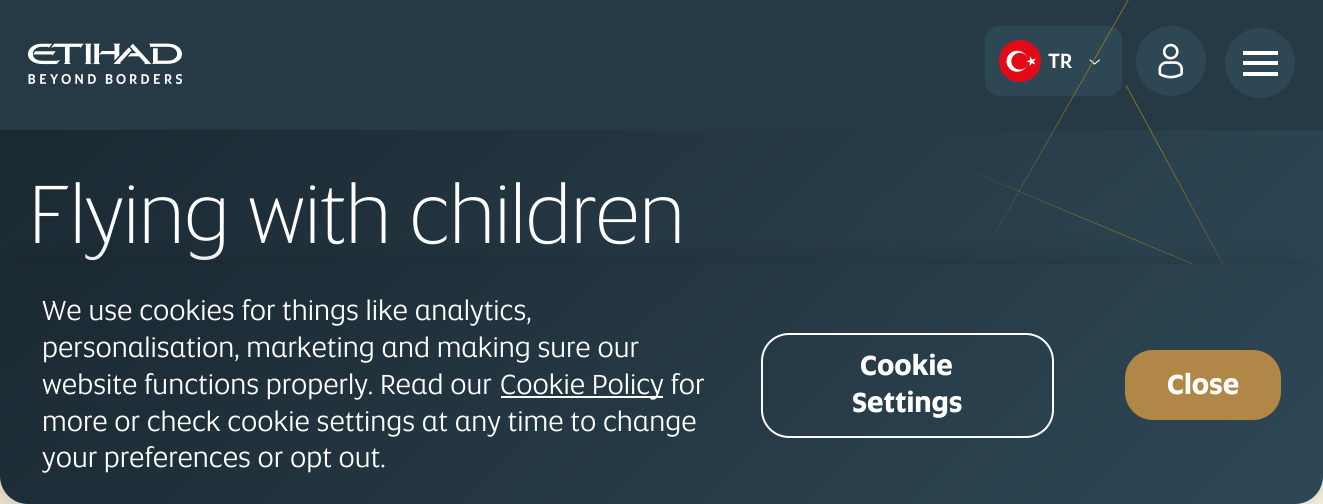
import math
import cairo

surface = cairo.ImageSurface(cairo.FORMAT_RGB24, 1323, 504)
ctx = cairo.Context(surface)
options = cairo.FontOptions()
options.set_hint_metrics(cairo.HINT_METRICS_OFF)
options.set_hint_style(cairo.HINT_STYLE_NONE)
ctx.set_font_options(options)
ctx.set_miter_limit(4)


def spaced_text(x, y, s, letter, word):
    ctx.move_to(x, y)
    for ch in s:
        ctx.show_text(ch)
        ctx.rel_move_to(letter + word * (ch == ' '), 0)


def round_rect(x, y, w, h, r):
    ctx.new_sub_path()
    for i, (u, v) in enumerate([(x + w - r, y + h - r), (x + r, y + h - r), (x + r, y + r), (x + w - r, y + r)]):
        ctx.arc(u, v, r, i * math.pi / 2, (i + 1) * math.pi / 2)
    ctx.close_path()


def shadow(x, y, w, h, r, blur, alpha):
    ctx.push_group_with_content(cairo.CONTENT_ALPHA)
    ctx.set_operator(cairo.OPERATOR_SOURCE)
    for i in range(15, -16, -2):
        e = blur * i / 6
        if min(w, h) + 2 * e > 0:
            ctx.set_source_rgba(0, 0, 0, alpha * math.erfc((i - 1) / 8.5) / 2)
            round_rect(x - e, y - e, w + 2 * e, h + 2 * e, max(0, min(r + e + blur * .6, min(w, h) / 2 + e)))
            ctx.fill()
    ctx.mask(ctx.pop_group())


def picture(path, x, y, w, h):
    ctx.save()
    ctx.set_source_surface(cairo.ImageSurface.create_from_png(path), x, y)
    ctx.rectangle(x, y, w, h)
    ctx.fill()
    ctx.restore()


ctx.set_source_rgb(1, 1, 1)
ctx.paint()
ctx.set_source_rgb(0.149, 0.227, 0.275)
ctx.rectangle(0, 0, 1323, 130)
ctx.fill()
picture("img1.png", 28, 43, 154, 42)
ctx.set_source_rgb(0.18, 0.278, 0.333)
ctx.arc(1260, 63, 35, 0, 2 * math.pi)
ctx.fill()
ctx.set_source_rgb(1, 1, 1)
ctx.rectangle(1243, 51, 35, 4)
ctx.fill()
ctx.rectangle(1243, 61, 35, 4)
ctx.fill()
ctx.rectangle(1243, 72, 35, 4)
ctx.fill()
ctx.set_source_rgb(0.18, 0.278, 0.333)
round_rect(985, 26, 137, 70, 14)
ctx.fill()
picture("img2.png", 999, 40, 42, 42)
ctx.select_font_face("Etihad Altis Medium")
ctx.set_font_size(21)
ctx.set_source_rgb(1, 1, 1)
ctx.move_to(1048, 68)
ctx.show_text("TR")
ctx.new_path()
ctx.move_to(1090, 60)
ctx.line_to(1094.5, 64)
ctx.line_to(1099.5, 60)
ctx.set_line_width(1.1)
ctx.set_line_cap(cairo.LINE_CAP_ROUND)
ctx.set_line_join(cairo.LINE_JOIN_ROUND)
ctx.stroke()
ctx.set_source_rgb(0.18, 0.278, 0.333)
ctx.arc(1171, 61, 35, 0, 2 * math.pi)
ctx.fill()
picture("img3.png", 1158, 43, 25, 36)
gradient = cairo.LinearGradient(282, -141, 1041, 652)
gradient.add_color_stop_rgba(0.03, 0.106, 0.161, 0.196, 1)
gradient.add_color_stop_rgba(0.96, 0.18, 0.278, 0.333, 1)
ctx.set_source(gradient)
ctx.rectangle(0, 130, 1323, 134)
ctx.fill()
ctx.select_font_face("Etihad Altis Light")
ctx.set_font_size(84)
ctx.set_source_rgb(1, 1, 1)
spaced_text(28, 243, "Flying with children", -1.4, 0)
ctx.new_path()
ctx.move_to(964, 287.5)
ctx.line_to(1130.5, -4)
gradient = cairo.LinearGradient(1008, 46, 976, 270)
gradient.add_color_stop_rgba(0, 0.745, 0.545, 0.075, 1)
gradient.add_color_stop_rgba(1, 0.157, 0.243, 0.294, 1)
ctx.set_source(gradient)
ctx.set_line_width(0.6)
ctx.set_line_cap(cairo.LINE_CAP_BUTT)
ctx.set_line_join(cairo.LINE_JOIN_MITER)
ctx.stroke()
ctx.new_path()
ctx.move_to(1309.5, 424.5)
ctx.line_to(1126, 85)
gradient = cairo.LinearGradient(1215, 114, 1298, 335)
gradient.add_color_stop_rgba(0, 0.745, 0.545, 0.075, 1)
gradient.add_color_stop_rgba(1, 0.745, 0.545, 0.075, 0)
ctx.set_source(gradient)
ctx.stroke()
ctx.new_path()
ctx.move_to(928.5, 153.5)
ctx.line_to(1322, 318)
gradient = cairo.LinearGradient(971, 108, 1104, 438)
gradient.add_color_stop_rgba(0.11, 0.745, 0.545, 0.075, 0)
gradient.add_color_stop_rgba(0.48, 0.745, 0.545, 0.075, 0.8)
gradient.add_color_stop_rgba(1, 0.745, 0.545, 0.075, 0)
ctx.set_source(gradient)
ctx.stroke()
gradient = cairo.LinearGradient(181, 208, 1142, 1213)
gradient.add_color_stop_rgba(0.03, 0.929, 0.886, 0.816, 1)
gradient.add_color_stop_rgba(0.96, 0.996, 0.976, 0.933, 1)
ctx.set_source(gradient)
ctx.rectangle(0, 476, 1323, 28)
ctx.fill()
ctx.set_source_rgb(0, 0, 0)
shadow(0, 264, 1323, 240, 28, 16, 0.2)
gradient = cairo.LinearGradient(282, -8, 1041, 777)
gradient.add_color_stop_rgba(0.03, 0.106, 0.161, 0.196, 1)
gradient.add_color_stop_rgba(0.96, 0.18, 0.278, 0.333, 1)
ctx.set_source(gradient)
ctx.new_path()
ctx.move_to(0, 264)
ctx.line_to(1323, 264)
ctx.line_to(1323, 476)
ctx.curve_to(1323, 491.5, 1310.5, 504, 1295, 504)
ctx.line_to(28, 504)
ctx.curve_to(12.5, 504, 0, 491.5, 0, 476)
ctx.close_path()
ctx.fill()
ctx.select_font_face("Etihad Altis")
ctx.set_font_size(28)
ctx.set_source_rgb(1, 1, 1)
ctx.move_to(42, 320)
ctx.show_text("We use cookies for things like analytics,")
ctx.move_to(42, 357)
ctx.show_text("personalisation, marketing and making sure our")
ctx.move_to(42, 394)
ctx.show_text("website functions properly. Read our")
ctx.rectangle(501, 396, 162, 2)
ctx.fill()
ctx.move_to(500, 394)
ctx.show_text("Cookie Policy for")
ctx.move_to(42, 431)
ctx.show_text("more or check cookie settings at any time to change")
ctx.move_to(42, 467)
ctx.show_text("your preferences or opt out.")
round_rect(762, 334, 291, 103, 27)
ctx.set_line_width(2)
ctx.stroke()
ctx.select_font_face("Etihad Altis", cairo.FONT_SLANT_NORMAL, cairo.FONT_WEIGHT_BOLD)
ctx.move_to(860, 375)
ctx.show_text("Cookie")
ctx.move_to(852, 412)
ctx.show_text("Settings")
ctx.set_source_rgb(0.69, 0.529, 0.278)
round_rect(1125, 350, 156, 70, 28)
ctx.fill()
ctx.set_source_rgb(1, 1, 1)
ctx.move_to(1167, 394)
ctx.show_text("Close")
surface.write_to_png("page.png")
